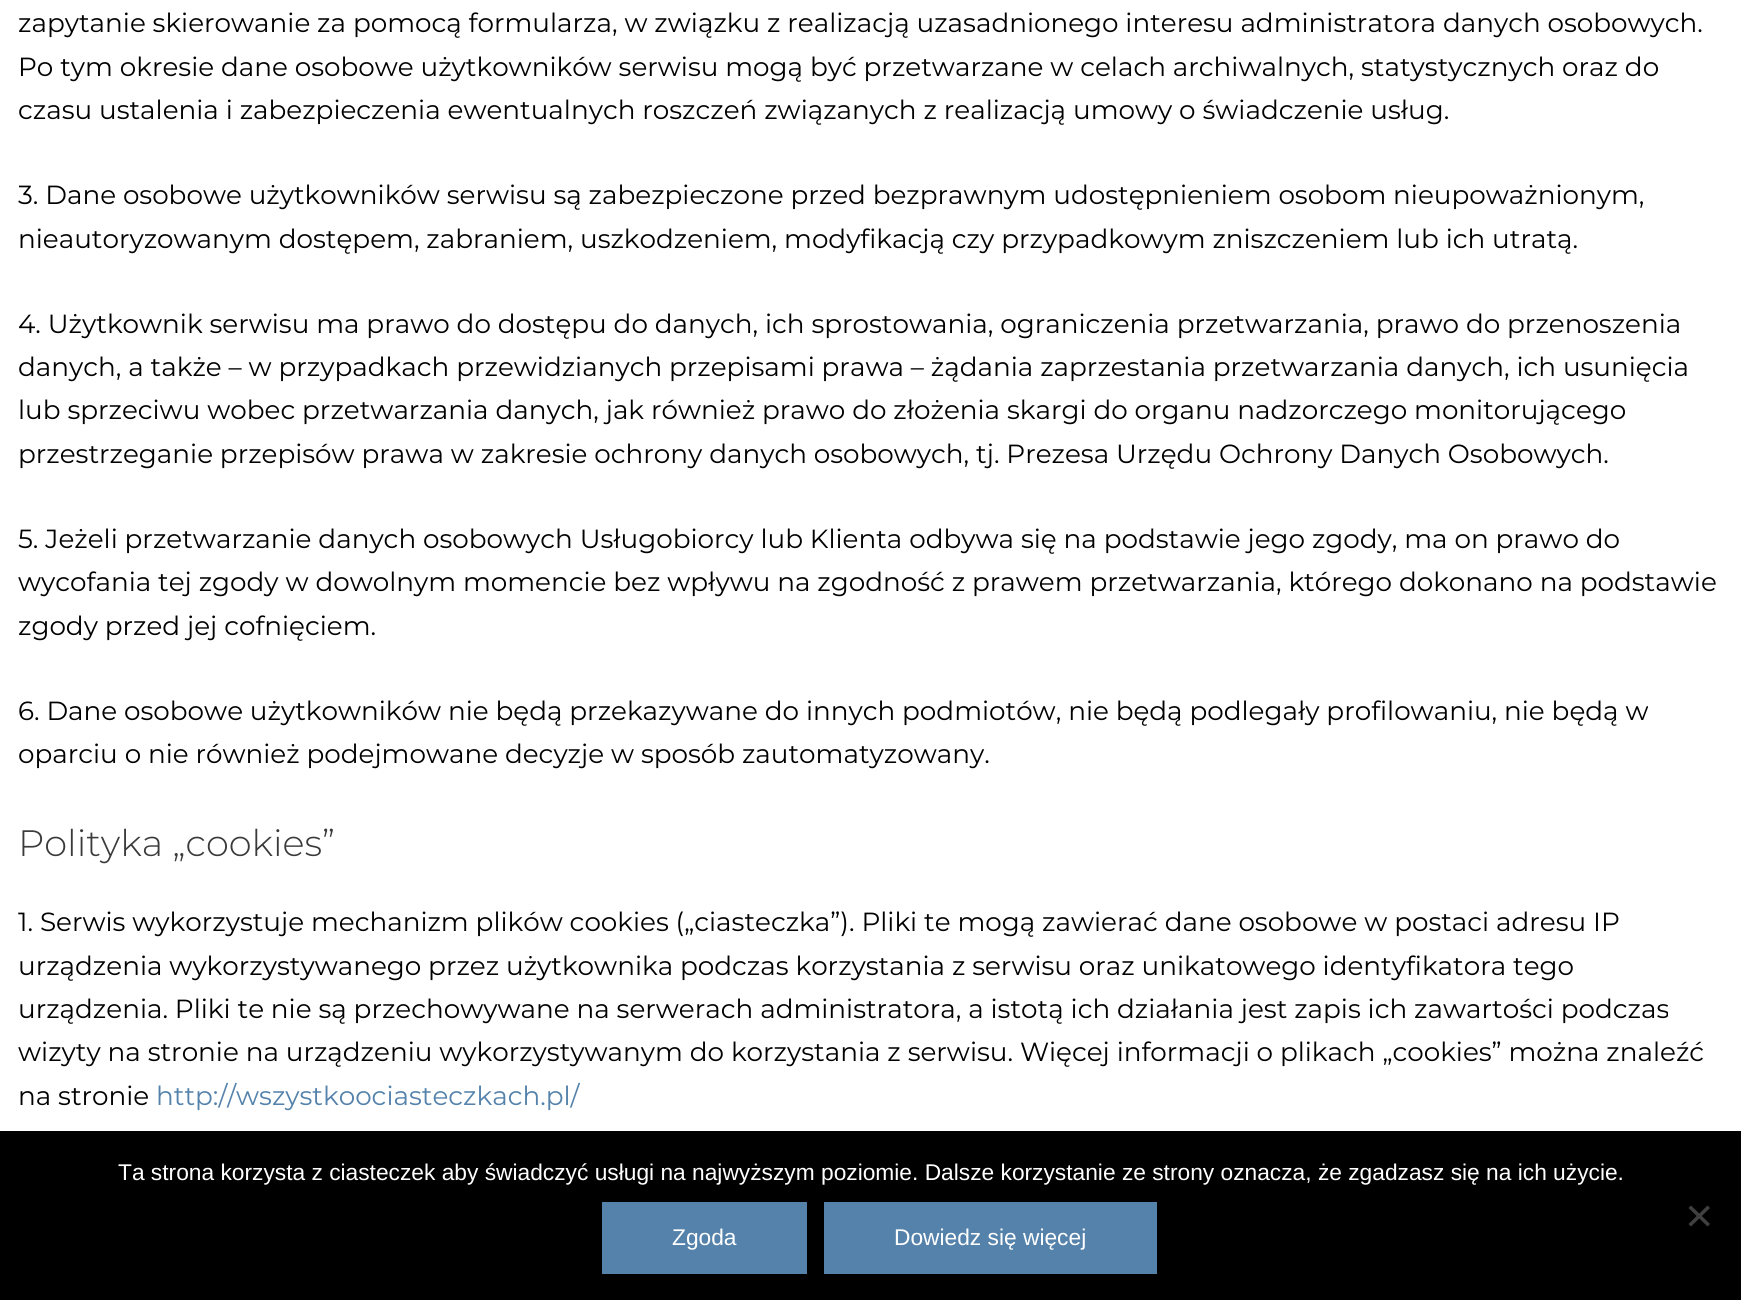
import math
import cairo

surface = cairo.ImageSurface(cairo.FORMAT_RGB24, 1741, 1300)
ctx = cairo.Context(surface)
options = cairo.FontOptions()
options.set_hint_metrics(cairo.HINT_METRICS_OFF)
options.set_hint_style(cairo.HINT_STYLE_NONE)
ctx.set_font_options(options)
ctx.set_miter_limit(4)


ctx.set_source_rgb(1, 1, 1)
ctx.paint()
ctx.select_font_face("Montserrat")
ctx.set_font_size(26.25)
ctx.set_source_rgb(0, 0, 0)
ctx.move_to(18, 32)
ctx.show_text("zapytanie skierowanie za pomocą formularza, w związku z realizacją uzasadnionego interesu administratora danych osobowych.")
ctx.move_to(18, 76)
ctx.show_text("Po tym okresie dane osobowe użytkowników serwisu mogą być przetwarzane w celach archiwalnych, statystycznych oraz do")
ctx.move_to(18, 119)
ctx.show_text("czasu ustalenia i zabezpieczenia ewentualnych roszczeń związanych z realizacją umowy o świadczenie usług.")
ctx.move_to(18, 204)
ctx.show_text("3. Dane osobowe użytkowników serwisu są zabezpieczone przed bezprawnym udostępnieniem osobom nieupoważnionym,")
ctx.move_to(18, 248)
ctx.show_text("nieautoryzowanym dostępem, zabraniem, uszkodzeniem, modyfikacją czy przypadkowym zniszczeniem lub ich utratą.")
ctx.move_to(18, 333)
ctx.show_text("4. Użytkownik serwisu ma prawo do dostępu do danych, ich sprostowania, ograniczenia przetwarzania, prawo do przenoszenia")
ctx.move_to(18, 376)
ctx.show_text("danych, a także – w przypadkach przewidzianych przepisami prawa – żądania zaprzestania przetwarzania danych, ich usunięcia")
ctx.move_to(18, 419)
ctx.show_text("lub sprzeciwu wobec przetwarzania danych, jak również prawo do złożenia skargi do organu nadzorczego monitorującego")
ctx.move_to(18, 463)
ctx.show_text("przestrzeganie przepisów prawa w zakresie ochrony danych osobowych, tj. Prezesa Urzędu Ochrony Danych Osobowych.")
ctx.move_to(18, 548)
ctx.show_text("5. Jeżeli przetwarzanie danych osobowych Usługobiorcy lub Klienta odbywa się na podstawie jego zgody, ma on prawo do")
ctx.move_to(18, 591)
ctx.show_text("wycofania tej zgody w dowolnym momencie bez wpływu na zgodność z prawem przetwarzania, którego dokonano na podstawie")
ctx.move_to(18, 635)
ctx.show_text("zgody przed jej cofnięciem.")
ctx.move_to(18, 720)
ctx.show_text("6. Dane osobowe użytkowników nie będą przekazywane do innych podmiotów, nie będą podlegały profilowaniu, nie będą w")
ctx.move_to(18, 763)
ctx.show_text("oparciu o nie również podejmowane decyzje w sposób zautomatyzowany.")
ctx.select_font_face("Montserrat Light")
ctx.set_font_size(36.75)
ctx.set_source_rgb(0.227, 0.227, 0.227)
ctx.move_to(18, 856)
ctx.show_text("Polityka „cookies”")
ctx.select_font_face("Montserrat")
ctx.set_font_size(26.25)
ctx.set_source_rgb(0, 0, 0)
ctx.move_to(18, 931)
ctx.show_text("1. Serwis wykorzystuje mechanizm plików cookies („ciasteczka”). Pliki te mogą zawierać dane osobowe w postaci adresu IP")
ctx.move_to(18, 975)
ctx.show_text("urządzenia wykorzystywanego przez użytkownika podczas korzystania z serwisu oraz unikatowego identyfikatora tego")
ctx.move_to(18, 1018)
ctx.show_text("urządzenia. Pliki te nie są przechowywane na serwerach administratora, a istotą ich działania jest zapis ich zawartości podczas")
ctx.move_to(18, 1061)
ctx.show_text("wizyty na stronie na urządzeniu wykorzystywanym do korzystania z serwisu. Więcej informacji o plikach „cookies” można znaleźć")
ctx.move_to(18, 1105)
ctx.show_text("na stronie")
ctx.set_source_rgb(0.329, 0.51, 0.671)
ctx.move_to(156, 1105)
ctx.show_text("http://wszystkoociasteczkach.pl/")
ctx.set_source_rgb(0, 0, 0)
ctx.rectangle(0, 1131, 1741, 169)
ctx.fill()
ctx.select_font_face("Liberation Sans")
ctx.set_font_size(22.75)
ctx.set_source_rgb(1, 1, 1)
ctx.move_to(118, 1180)
ctx.show_text("Ta strona korzysta z ciasteczek aby świadczyć usługi na najwyższym poziomie. Dalsze korzystanie ze strony oznacza, że zgadzasz się na ich użycie.")
ctx.set_source_rgb(0.251, 0.251, 0.251)
ctx.new_path()
ctx.move_to(1707.5, 1205.5)
ctx.line_to(1710, 1208)
ctx.line_to(1691, 1226.5)
ctx.line_to(1688.5, 1224)
ctx.close_path()
ctx.fill()
ctx.new_path()
ctx.move_to(1688.5, 1208)
ctx.line_to(1691, 1205.5)
ctx.line_to(1710, 1224)
ctx.line_to(1707.5, 1226.5)
ctx.close_path()
ctx.fill()
ctx.set_source_rgb(0.329, 0.51, 0.671)
ctx.rectangle(602, 1202, 205, 72)
ctx.fill()
ctx.set_source_rgb(1, 1, 1)
ctx.move_to(672, 1245)
ctx.show_text("Zgoda")
ctx.set_source_rgb(0.329, 0.51, 0.671)
ctx.rectangle(824, 1202, 333, 72)
ctx.fill()
ctx.set_source_rgb(1, 1, 1)
ctx.move_to(894, 1245)
ctx.show_text("Dowiedz się więcej")
surface.write_to_png("page.png")
